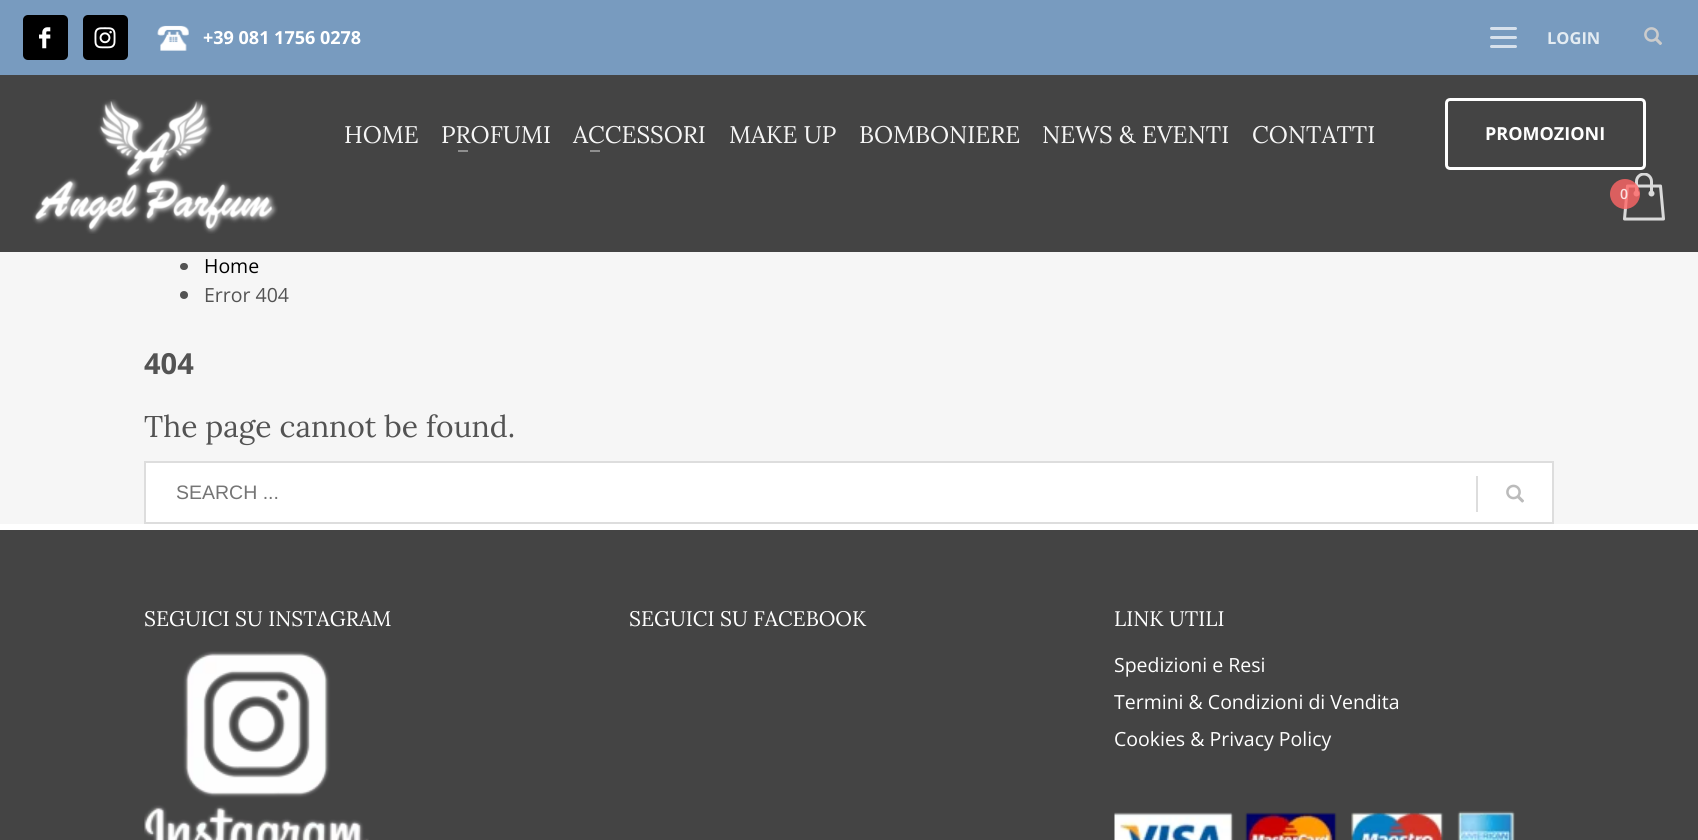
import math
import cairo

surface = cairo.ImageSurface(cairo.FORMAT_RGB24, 1698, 840)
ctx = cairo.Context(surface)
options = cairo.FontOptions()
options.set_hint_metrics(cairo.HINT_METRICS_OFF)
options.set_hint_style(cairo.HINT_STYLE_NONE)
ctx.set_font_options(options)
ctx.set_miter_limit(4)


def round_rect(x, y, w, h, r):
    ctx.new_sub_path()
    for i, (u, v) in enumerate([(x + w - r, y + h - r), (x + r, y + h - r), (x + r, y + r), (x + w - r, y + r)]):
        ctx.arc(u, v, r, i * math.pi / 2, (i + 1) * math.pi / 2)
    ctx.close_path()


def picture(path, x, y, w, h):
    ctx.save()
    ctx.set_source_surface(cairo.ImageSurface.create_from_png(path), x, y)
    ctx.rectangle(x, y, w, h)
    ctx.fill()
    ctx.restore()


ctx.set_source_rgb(0.961, 0.961, 0.961)
ctx.paint()
ctx.set_source_rgb(0.267, 0.267, 0.267)
ctx.rectangle(0, 75, 1698, 177)
ctx.fill()
ctx.set_source_rgb(0.471, 0.608, 0.749)
ctx.rectangle(0, 0, 1698, 75)
ctx.fill()
ctx.set_source_rgb(0, 0, 0)
round_rect(23, 15, 45, 45, 5)
ctx.fill()
picture("img1.png", 39, 27, 12, 22)
round_rect(83, 15, 45, 45, 5)
ctx.fill()
picture("img2.png", 94, 27, 22, 22)
picture("img3.png", 157, 25, 32, 26)
ctx.select_font_face("Open Sans", cairo.FONT_SLANT_NORMAL, cairo.FONT_WEIGHT_BOLD)
ctx.set_font_size(18)
ctx.set_source_rgb(1, 1, 1)
ctx.move_to(203, 44)
ctx.show_text("+39 081 1756 0278")
ctx.set_source_rgb(0.843, 0.882, 0.925)
round_rect(1490, 45, 27, 3, 1.5)
ctx.fill()
round_rect(1490, 36, 27, 3, 1.5)
ctx.fill()
round_rect(1490, 27, 27, 3, 1.5)
ctx.fill()
ctx.set_font_size(16.5)
ctx.set_source_rgb(0.894, 0.922, 0.949)
ctx.move_to(1547, 44)
ctx.show_text("LOGIN")
picture("img4.png", 1644, 27, 18, 18)
picture("img5.png", 32, 99, 246, 135)
ctx.select_font_face("Lora")
ctx.set_font_size(24)
ctx.set_source_rgb(0.961, 0.961, 0.961)
ctx.move_to(344, 143)
ctx.show_text("HOME")
ctx.move_to(441, 143)
ctx.show_text("PROFUMI")
ctx.set_source_rgb(0.561, 0.561, 0.561)
ctx.rectangle(458, 150, 10, 2)
ctx.fill()
ctx.set_source_rgb(0.961, 0.961, 0.961)
ctx.move_to(573, 143)
ctx.show_text("ACCESSORI")
ctx.set_source_rgb(0.561, 0.561, 0.561)
ctx.rectangle(590, 150, 10, 2)
ctx.fill()
ctx.set_source_rgb(0.961, 0.961, 0.961)
ctx.move_to(729, 143)
ctx.show_text("MAKE UP")
ctx.move_to(859, 143)
ctx.show_text("BOMBONIERE")
ctx.move_to(1042, 143)
ctx.show_text("NEWS & EVENTI")
ctx.move_to(1252, 143)
ctx.show_text("CONTATTI")
round_rect(1446.5, 99.5, 198, 69, 3.5)
ctx.set_source_rgb(1, 1, 1)
ctx.set_line_width(3)
ctx.stroke()
ctx.select_font_face("Open Sans", cairo.FONT_SLANT_NORMAL, cairo.FONT_WEIGHT_BOLD)
ctx.set_font_size(18)
ctx.move_to(1485, 140)
ctx.show_text("PROMOZIONI")
picture("img6.png", 1623, 173, 42, 48)
ctx.set_source_rgba(1, 0.4, 0.4, 0.8)
ctx.arc(1625, 194, 15, 0, 2 * math.pi)
ctx.fill()
ctx.select_font_face("Open Sans SemiBold")
ctx.set_font_size(14)
ctx.set_source_rgb(0.976, 0.882, 0.882)
ctx.move_to(1620, 199)
ctx.show_text("0")
ctx.set_source_rgb(0.325, 0.325, 0.325)
round_rect(180, 263, 8, 7, 3.5)
ctx.fill()
ctx.select_font_face("Open Sans")
ctx.set_font_size(19.5)
ctx.set_source_rgb(0, 0, 0)
ctx.move_to(204, 273)
ctx.show_text("Home")
ctx.set_source_rgb(0.325, 0.325, 0.325)
ctx.new_path()
ctx.arc(184, 295, 4, 0, 2 * math.pi)
ctx.fill()
ctx.move_to(204, 302)
ctx.show_text("Error 404")
ctx.select_font_face("Open Sans", cairo.FONT_SLANT_NORMAL, cairo.FONT_WEIGHT_BOLD)
ctx.set_font_size(29)
ctx.move_to(144, 374)
ctx.show_text("404")
ctx.select_font_face("Lora")
ctx.set_font_size(30)
ctx.move_to(144, 437)
ctx.show_text("The page cannot be found.")
ctx.set_source_rgb(1, 1, 1)
ctx.rectangle(145, 462, 1408, 61)
ctx.fill_preserve()
ctx.set_source_rgb(0.867, 0.867, 0.867)
ctx.set_line_width(2)
ctx.stroke()
ctx.select_font_face("Liberation Sans")
ctx.set_font_size(19.5)
ctx.set_source_rgb(0.459, 0.459, 0.459)
ctx.move_to(176, 499)
ctx.show_text("SEARCH ...")
ctx.set_source_rgb(0.867, 0.867, 0.867)
ctx.rectangle(1476, 476, 2, 36)
ctx.fill()
picture("img7.png", 1506, 484, 18, 19)
ctx.set_source_rgb(0.267, 0.267, 0.267)
ctx.rectangle(0, 530, 1698, 310)
ctx.fill()
ctx.set_source_rgb(1, 1, 1)
ctx.rectangle(0, 524, 1698, 6)
ctx.fill()
ctx.select_font_face("Lora")
ctx.set_font_size(21)
ctx.move_to(144, 626)
ctx.show_text("SEGUICI SU INSTAGRAM")
picture("img8.png", 144, 651, 225, 189)
ctx.move_to(629, 626)
ctx.show_text("SEGUICI SU FACEBOOK")
ctx.move_to(1114, 626)
ctx.show_text("LINK UTILI")
ctx.select_font_face("Open Sans")
ctx.set_font_size(19.5)
ctx.move_to(1114, 672)
ctx.show_text("Spedizioni e Resi")
ctx.move_to(1114, 709)
ctx.show_text("Termini & Condizioni di Vendita")
ctx.move_to(1114, 746)
ctx.show_text("Cookies & Privacy Policy")
picture("img9.png", 1114, 811, 401, 29)
surface.write_to_png("page.png")
